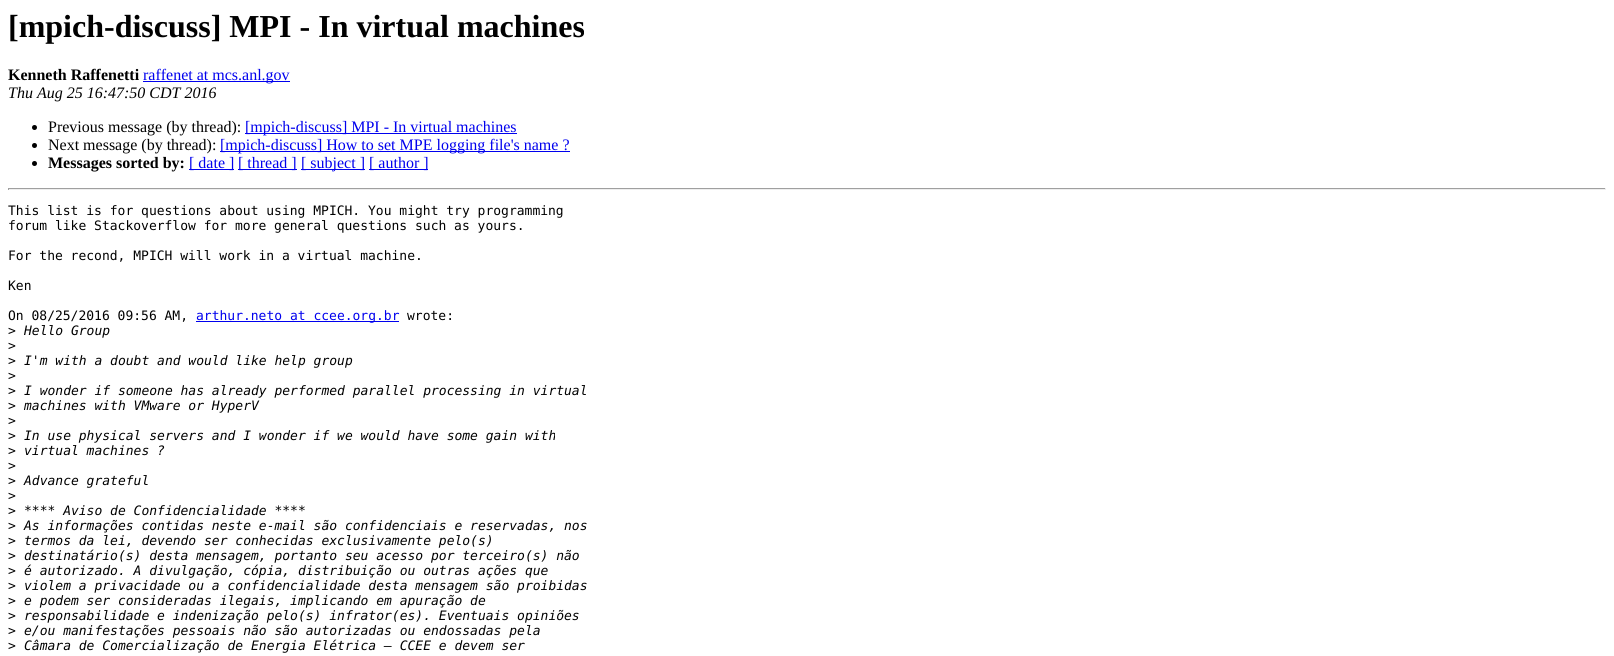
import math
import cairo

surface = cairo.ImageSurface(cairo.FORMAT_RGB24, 1614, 656)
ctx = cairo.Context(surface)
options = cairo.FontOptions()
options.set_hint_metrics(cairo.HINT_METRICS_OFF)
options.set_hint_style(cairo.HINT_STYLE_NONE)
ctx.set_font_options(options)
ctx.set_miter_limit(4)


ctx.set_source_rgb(1, 1, 1)
ctx.paint()
ctx.select_font_face("Liberation Serif", cairo.FONT_SLANT_NORMAL, cairo.FONT_WEIGHT_BOLD)
ctx.set_font_size(32)
ctx.set_source_rgb(0, 0, 0)
ctx.move_to(8, 37)
ctx.show_text("[mpich-discuss] MPI - In virtual machines")
ctx.set_font_size(16)
ctx.move_to(8, 80)
ctx.show_text("Kenneth Raffenetti")
ctx.set_source_rgb(0, 0, 0.933)
ctx.rectangle(143, 81, 147, 1)
ctx.fill()
ctx.select_font_face("Liberation Serif")
ctx.move_to(143, 80)
ctx.show_text("raffenet at mcs.anl.gov")
ctx.select_font_face("Liberation Serif", cairo.FONT_SLANT_ITALIC)
ctx.set_source_rgb(0, 0, 0)
ctx.move_to(8, 98)
ctx.show_text("Thu Aug 25 16:47:50 CDT 2016")
ctx.new_path()
ctx.arc(34.5, 127.5, 2.5, 0, 2 * math.pi)
ctx.fill()
ctx.select_font_face("Liberation Serif")
ctx.move_to(48, 132)
ctx.show_text("Previous message (by thread):")
ctx.set_source_rgb(0, 0, 0.933)
ctx.rectangle(245, 133, 272, 1)
ctx.fill()
ctx.move_to(245, 132)
ctx.show_text("[mpich-discuss] MPI - In virtual machines")
ctx.set_source_rgb(0, 0, 0)
ctx.new_path()
ctx.arc(34.5, 145.5, 2.5, 0, 2 * math.pi)
ctx.fill()
ctx.move_to(48, 150)
ctx.show_text("Next message (by thread):")
ctx.set_source_rgb(0, 0, 0.933)
ctx.rectangle(220, 151, 350, 1)
ctx.fill()
ctx.move_to(220, 150)
ctx.show_text("[mpich-discuss] How to set MPE logging file's name ?")
ctx.set_source_rgb(0, 0, 0)
ctx.new_path()
ctx.arc(34.5, 163.5, 2.5, 0, 2 * math.pi)
ctx.fill()
ctx.select_font_face("Liberation Serif", cairo.FONT_SLANT_NORMAL, cairo.FONT_WEIGHT_BOLD)
ctx.move_to(48, 168)
ctx.show_text("Messages sorted by:")
ctx.set_source_rgb(0, 0, 0.933)
ctx.rectangle(189, 169, 45, 1)
ctx.fill()
ctx.select_font_face("Liberation Serif")
ctx.move_to(189, 168)
ctx.show_text("[ date ]")
ctx.rectangle(238, 169, 59, 1)
ctx.fill()
ctx.move_to(238, 168)
ctx.show_text("[ thread ]")
ctx.rectangle(301, 169, 64, 1)
ctx.fill()
ctx.move_to(301, 168)
ctx.show_text("[ subject ]")
ctx.rectangle(369, 169, 59, 1)
ctx.fill()
ctx.move_to(369, 168)
ctx.show_text("[ author ]")
ctx.set_source_rgb(0.624, 0.624, 0.624)
ctx.rectangle(8, 188, 1598, 1)
ctx.fill()
ctx.set_source_rgb(0.933, 0.933, 0.933)
ctx.rectangle(1605, 188, 1, 2)
ctx.fill()
ctx.rectangle(8, 189, 1598, 1)
ctx.fill()
ctx.set_source_rgb(0.624, 0.624, 0.624)
ctx.rectangle(8, 188, 1, 2)
ctx.fill()
ctx.select_font_face("DejaVu Sans Mono")
ctx.set_font_size(13)
ctx.set_source_rgb(0, 0, 0)
ctx.move_to(8, 215)
ctx.show_text("This list is for questions about using MPICH. You might try programming")
ctx.move_to(8, 230)
ctx.show_text("forum like Stackoverflow for more general questions such as yours.")
ctx.move_to(8, 260)
ctx.show_text("For the recond, MPICH will work in a virtual machine.")
ctx.move_to(8, 290)
ctx.show_text("Ken")
ctx.move_to(8, 320)
ctx.show_text("On 08/25/2016 09:56 AM,")
ctx.set_source_rgb(0, 0, 0.933)
ctx.rectangle(196, 321, 203, 1)
ctx.fill()
ctx.move_to(196, 320)
ctx.show_text("arthur.neto at ccee.org.br")
ctx.set_source_rgb(0, 0, 0)
ctx.move_to(407, 320)
ctx.show_text("wrote:")
ctx.move_to(8, 335)
ctx.show_text(">")
ctx.select_font_face("DejaVu Sans Mono", cairo.FONT_SLANT_ITALIC)
ctx.move_to(24, 335)
ctx.show_text("Hello Group")
ctx.select_font_face("DejaVu Sans Mono")
ctx.move_to(8, 350)
ctx.show_text(">")
ctx.move_to(8, 365)
ctx.show_text(">")
ctx.select_font_face("DejaVu Sans Mono", cairo.FONT_SLANT_ITALIC)
ctx.move_to(24, 365)
ctx.show_text("I'm with a doubt and would like help group")
ctx.select_font_face("DejaVu Sans Mono")
ctx.move_to(8, 380)
ctx.show_text(">")
ctx.move_to(8, 395)
ctx.show_text(">")
ctx.select_font_face("DejaVu Sans Mono", cairo.FONT_SLANT_ITALIC)
ctx.move_to(24, 395)
ctx.show_text("I wonder if someone has already performed parallel processing in virtual")
ctx.select_font_face("DejaVu Sans Mono")
ctx.move_to(8, 410)
ctx.show_text(">")
ctx.select_font_face("DejaVu Sans Mono", cairo.FONT_SLANT_ITALIC)
ctx.move_to(24, 410)
ctx.show_text("machines with VMware or HyperV")
ctx.select_font_face("DejaVu Sans Mono")
ctx.move_to(8, 425)
ctx.show_text(">")
ctx.move_to(8, 440)
ctx.show_text(">")
ctx.select_font_face("DejaVu Sans Mono", cairo.FONT_SLANT_ITALIC)
ctx.move_to(24, 440)
ctx.show_text("In use physical servers and I wonder if we would have some gain with")
ctx.select_font_face("DejaVu Sans Mono")
ctx.move_to(8, 455)
ctx.show_text(">")
ctx.select_font_face("DejaVu Sans Mono", cairo.FONT_SLANT_ITALIC)
ctx.move_to(24, 455)
ctx.show_text("virtual machines ?")
ctx.select_font_face("DejaVu Sans Mono")
ctx.move_to(8, 470)
ctx.show_text(">")
ctx.move_to(8, 485)
ctx.show_text(">")
ctx.select_font_face("DejaVu Sans Mono", cairo.FONT_SLANT_ITALIC)
ctx.move_to(24, 485)
ctx.show_text("Advance grateful")
ctx.select_font_face("DejaVu Sans Mono")
ctx.move_to(8, 500)
ctx.show_text(">")
ctx.move_to(8, 515)
ctx.show_text(">")
ctx.select_font_face("DejaVu Sans Mono", cairo.FONT_SLANT_ITALIC)
ctx.move_to(24, 515)
ctx.show_text("**** Aviso de Confidencialidade ****")
ctx.select_font_face("DejaVu Sans Mono")
ctx.move_to(8, 530)
ctx.show_text(">")
ctx.select_font_face("DejaVu Sans Mono", cairo.FONT_SLANT_ITALIC)
ctx.move_to(24, 530)
ctx.show_text("As informações contidas neste e-mail são confidenciais e reservadas, nos")
ctx.select_font_face("DejaVu Sans Mono")
ctx.move_to(8, 545)
ctx.show_text(">")
ctx.select_font_face("DejaVu Sans Mono", cairo.FONT_SLANT_ITALIC)
ctx.move_to(24, 545)
ctx.show_text("termos da lei, devendo ser conhecidas exclusivamente pelo(s)")
ctx.select_font_face("DejaVu Sans Mono")
ctx.move_to(8, 560)
ctx.show_text(">")
ctx.select_font_face("DejaVu Sans Mono", cairo.FONT_SLANT_ITALIC)
ctx.move_to(24, 560)
ctx.show_text("destinatário(s) desta mensagem, portanto seu acesso por terceiro(s) não")
ctx.select_font_face("DejaVu Sans Mono")
ctx.move_to(8, 575)
ctx.show_text(">")
ctx.select_font_face("DejaVu Sans Mono", cairo.FONT_SLANT_ITALIC)
ctx.move_to(24, 575)
ctx.show_text("é autorizado. A divulgação, cópia, distribuição ou outras ações que")
ctx.select_font_face("DejaVu Sans Mono")
ctx.move_to(8, 590)
ctx.show_text(">")
ctx.select_font_face("DejaVu Sans Mono", cairo.FONT_SLANT_ITALIC)
ctx.move_to(24, 590)
ctx.show_text("violem a privacidade ou a confidencialidade desta mensagem são proibidas")
ctx.select_font_face("DejaVu Sans Mono")
ctx.move_to(8, 605)
ctx.show_text(">")
ctx.select_font_face("DejaVu Sans Mono", cairo.FONT_SLANT_ITALIC)
ctx.move_to(24, 605)
ctx.show_text("e podem ser consideradas ilegais, implicando em apuração de")
ctx.select_font_face("DejaVu Sans Mono")
ctx.move_to(8, 620)
ctx.show_text(">")
ctx.select_font_face("DejaVu Sans Mono", cairo.FONT_SLANT_ITALIC)
ctx.move_to(24, 620)
ctx.show_text("responsabilidade e indenização pelo(s) infrator(es). Eventuais opiniões")
ctx.select_font_face("DejaVu Sans Mono")
ctx.move_to(8, 635)
ctx.show_text(">")
ctx.select_font_face("DejaVu Sans Mono", cairo.FONT_SLANT_ITALIC)
ctx.move_to(24, 635)
ctx.show_text("e/ou manifestações pessoais não são autorizadas ou endossadas pela")
ctx.select_font_face("DejaVu Sans Mono")
ctx.move_to(8, 650)
ctx.show_text(">")
ctx.select_font_face("DejaVu Sans Mono", cairo.FONT_SLANT_ITALIC)
ctx.move_to(24, 650)
ctx.show_text("Câmara de Comercialização de Energia Elétrica – CCEE e devem ser")
surface.write_to_png("page.png")
